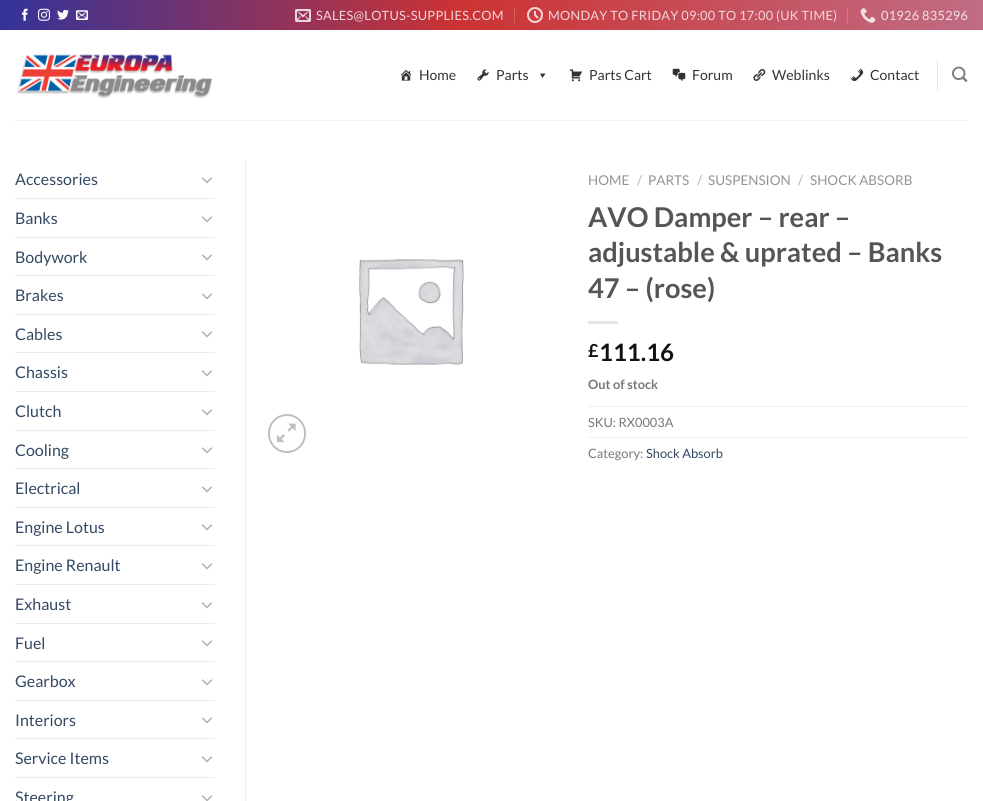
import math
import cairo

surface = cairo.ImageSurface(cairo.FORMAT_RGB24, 983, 801)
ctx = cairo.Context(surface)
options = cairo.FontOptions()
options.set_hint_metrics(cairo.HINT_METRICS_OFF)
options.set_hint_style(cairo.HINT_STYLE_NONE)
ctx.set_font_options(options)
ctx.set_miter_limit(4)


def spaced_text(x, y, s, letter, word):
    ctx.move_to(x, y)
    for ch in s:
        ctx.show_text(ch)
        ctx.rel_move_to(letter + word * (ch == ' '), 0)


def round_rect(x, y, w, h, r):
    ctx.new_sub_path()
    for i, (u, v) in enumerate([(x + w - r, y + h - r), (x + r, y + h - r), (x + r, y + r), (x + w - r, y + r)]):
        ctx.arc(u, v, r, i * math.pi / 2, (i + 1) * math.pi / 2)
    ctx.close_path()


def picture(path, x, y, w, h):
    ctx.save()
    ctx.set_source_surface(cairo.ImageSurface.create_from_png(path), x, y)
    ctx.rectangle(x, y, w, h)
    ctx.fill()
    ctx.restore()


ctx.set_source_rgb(1, 1, 1)
ctx.paint()
gradient = cairo.LinearGradient(0, 15, 983, 15)
gradient.add_color_stop_rgba(0, 0.2, 0.2, 0.6, 1)
gradient.add_color_stop_rgba(0.47, 0.8, 0.2, 0.2, 1)
gradient.add_color_stop_rgba(1, 0.753, 0.424, 0.518, 1)
ctx.set_source(gradient)
ctx.rectangle(0, 0, 983, 30)
ctx.fill()
picture("img1.png", 22, 8, 6, 13)
picture("img2.png", 38, 8, 12, 13)
picture("img3.png", 57, 9, 12, 11)
picture("img4.png", 76, 10, 12, 10)
picture("img5.png", 295, 9, 16, 13)
ctx.select_font_face("Lato")
ctx.set_font_size(12.8)
ctx.set_source_rgb(0.945, 0.839, 0.851)
spaced_text(316, 20, "SALES@LOTUS-SUPPLIES.COM", 0.25, 0)
ctx.set_source_rgb(0.835, 0.38, 0.384)
ctx.rectangle(514, 8, 1, 15)
ctx.fill()
picture("img6.png", 527, 7, 16, 16)
ctx.set_source_rgb(0.945, 0.839, 0.851)
spaced_text(548, 20, "MONDAY TO FRIDAY 09:00 TO 17:00 (UK TIME)", 0.25, 0)
ctx.set_source_rgb(0.812, 0.49, 0.549)
ctx.rectangle(847, 8, 1, 15)
ctx.fill()
picture("img7.png", 860, 8, 16, 15)
ctx.set_source_rgb(0.953, 0.878, 0.898)
spaced_text(881, 20, "01926 835296", 0.25, 0)
picture("img8.png", 17, 54, 196, 45)
picture("img9.png", 400, 69, 12, 12)
ctx.set_font_size(14)
ctx.set_source_rgb(0.2, 0.2, 0.2)
ctx.move_to(419, 80)
ctx.show_text("Home")
picture("img10.png", 477, 69, 12, 12)
ctx.move_to(496, 80)
ctx.show_text("Parts")
ctx.new_path()
ctx.move_to(545.5, 73.5)
ctx.line_to(542.5, 78)
ctx.line_to(540, 73.5)
ctx.close_path()
ctx.fill()
picture("img11.png", 569, 69, 14, 13)
ctx.move_to(589, 80)
ctx.show_text("Parts Cart")
picture("img12.png", 672, 68, 14, 14)
ctx.move_to(692, 80)
ctx.show_text("Forum")
picture("img13.png", 753, 69, 13, 12)
ctx.move_to(772, 80)
ctx.show_text("Weblinks")
picture("img14.png", 850, 68, 14, 13)
ctx.move_to(870, 80)
ctx.show_text("Contact")
ctx.set_source_rgb(0.902, 0.902, 0.902)
ctx.rectangle(937, 60, 1, 30)
ctx.fill()
picture("img15.png", 952, 66, 16, 16)
ctx.set_source_rgb(0.945, 0.945, 0.945)
ctx.rectangle(15, 120, 953, 1)
ctx.fill()
ctx.set_source_rgb(0.925, 0.925, 0.925)
ctx.rectangle(245, 160, 1, 641)
ctx.fill()
ctx.set_font_size(16)
ctx.set_source_rgb(0.2, 0.282, 0.384)
ctx.move_to(15, 185)
ctx.show_text("Accessories")
picture("img16.png", 201, 177, 12, 7)
ctx.set_source_rgb(0.925, 0.925, 0.925)
ctx.rectangle(15, 198, 200, 1)
ctx.fill()
ctx.set_source_rgb(0.2, 0.282, 0.384)
ctx.move_to(15, 224)
ctx.show_text("Banks")
picture("img16.png", 201, 216, 12, 7)
ctx.set_source_rgb(0.925, 0.925, 0.925)
ctx.rectangle(15, 237, 200, 1)
ctx.fill()
ctx.set_source_rgb(0.2, 0.282, 0.384)
ctx.move_to(15, 263)
ctx.show_text("Bodywork")
picture("img16.png", 201, 254, 12, 7)
ctx.set_source_rgb(0.925, 0.925, 0.925)
ctx.rectangle(15, 275, 200, 1)
ctx.fill()
ctx.set_source_rgb(0.2, 0.282, 0.384)
ctx.move_to(15, 301)
ctx.show_text("Brakes")
picture("img16.png", 201, 293, 12, 7)
ctx.set_source_rgb(0.925, 0.925, 0.925)
ctx.rectangle(15, 314, 200, 1)
ctx.fill()
ctx.set_source_rgb(0.2, 0.282, 0.384)
ctx.move_to(15, 340)
ctx.show_text("Cables")
picture("img16.png", 201, 331, 12, 7)
ctx.set_source_rgb(0.925, 0.925, 0.925)
ctx.rectangle(15, 352, 200, 1)
ctx.fill()
ctx.set_source_rgb(0.2, 0.282, 0.384)
ctx.move_to(15, 378)
ctx.show_text("Chassis")
picture("img16.png", 201, 370, 12, 7)
ctx.set_source_rgb(0.925, 0.925, 0.925)
ctx.rectangle(15, 391, 200, 1)
ctx.fill()
ctx.set_source_rgb(0.2, 0.282, 0.384)
ctx.move_to(15, 417)
ctx.show_text("Clutch")
picture("img16.png", 201, 409, 12, 7)
ctx.set_source_rgb(0.925, 0.925, 0.925)
ctx.rectangle(15, 430, 200, 1)
ctx.fill()
ctx.set_source_rgb(0.2, 0.282, 0.384)
ctx.move_to(15, 456)
ctx.show_text("Cooling")
picture("img16.png", 201, 447, 12, 7)
ctx.set_source_rgb(0.925, 0.925, 0.925)
ctx.rectangle(15, 468, 200, 1)
ctx.fill()
ctx.set_source_rgb(0.2, 0.282, 0.384)
ctx.move_to(15, 494)
ctx.show_text("Electrical")
picture("img16.png", 201, 486, 12, 7)
ctx.set_source_rgb(0.925, 0.925, 0.925)
ctx.rectangle(15, 507, 200, 1)
ctx.fill()
ctx.set_source_rgb(0.2, 0.282, 0.384)
ctx.move_to(15, 533)
ctx.show_text("Engine Lotus")
picture("img16.png", 201, 524, 12, 7)
ctx.set_source_rgb(0.925, 0.925, 0.925)
ctx.rectangle(15, 545, 200, 1)
ctx.fill()
ctx.set_source_rgb(0.2, 0.282, 0.384)
ctx.move_to(15, 571)
ctx.show_text("Engine Renault")
picture("img16.png", 201, 563, 12, 7)
ctx.set_source_rgb(0.925, 0.925, 0.925)
ctx.rectangle(15, 584, 200, 1)
ctx.fill()
ctx.set_source_rgb(0.2, 0.282, 0.384)
ctx.move_to(15, 610)
ctx.show_text("Exhaust")
picture("img16.png", 201, 602, 12, 7)
ctx.set_source_rgb(0.925, 0.925, 0.925)
ctx.rectangle(15, 623, 200, 1)
ctx.fill()
ctx.set_source_rgb(0.2, 0.282, 0.384)
ctx.move_to(15, 649)
ctx.show_text("Fuel")
picture("img16.png", 201, 640, 12, 7)
ctx.set_source_rgb(0.925, 0.925, 0.925)
ctx.rectangle(15, 661, 200, 1)
ctx.fill()
ctx.set_source_rgb(0.2, 0.282, 0.384)
ctx.move_to(15, 687)
ctx.show_text("Gearbox")
picture("img16.png", 201, 679, 12, 7)
ctx.set_source_rgb(0.925, 0.925, 0.925)
ctx.rectangle(15, 700, 200, 1)
ctx.fill()
ctx.set_source_rgb(0.2, 0.282, 0.384)
ctx.move_to(15, 726)
ctx.show_text("Interiors")
picture("img16.png", 201, 717, 12, 7)
ctx.set_source_rgb(0.925, 0.925, 0.925)
ctx.rectangle(15, 738, 200, 1)
ctx.fill()
ctx.set_source_rgb(0.2, 0.282, 0.384)
ctx.move_to(15, 764)
ctx.show_text("Service Items")
picture("img16.png", 201, 756, 12, 7)
ctx.set_source_rgb(0.925, 0.925, 0.925)
ctx.rectangle(15, 777, 200, 1)
ctx.fill()
ctx.set_source_rgb(0.2, 0.282, 0.384)
ctx.move_to(15, 803)
ctx.show_text("Steering")
picture("img17.png", 201, 795, 12, 6)
picture("img18.png", 359, 259, 105, 106)
round_rect(269, 415, 36, 37, 18)
ctx.set_source_rgb(0.753, 0.753, 0.753)
ctx.stroke()
picture("img19.png", 277, 423, 19, 20)
ctx.set_font_size(13.5)
ctx.set_source_rgb(0.58, 0.58, 0.58)
ctx.move_to(588, 185)
ctx.show_text("HOME")
ctx.set_source_rgb(0.698, 0.698, 0.698)
ctx.move_to(637, 185)
ctx.show_text("/")
ctx.set_source_rgb(0.58, 0.58, 0.58)
ctx.move_to(648, 185)
ctx.show_text("PARTS")
ctx.set_source_rgb(0.698, 0.698, 0.698)
ctx.move_to(697, 185)
ctx.show_text("/")
ctx.set_source_rgb(0.58, 0.58, 0.58)
ctx.move_to(708, 185)
ctx.show_text("SUSPENSION")
ctx.set_source_rgb(0.698, 0.698, 0.698)
ctx.move_to(798, 185)
ctx.show_text("/")
ctx.set_source_rgb(0.58, 0.58, 0.58)
ctx.move_to(810, 185)
ctx.show_text("SHOCK ABSORB")
ctx.select_font_face("Lato", cairo.FONT_SLANT_NORMAL, cairo.FONT_WEIGHT_BOLD)
ctx.set_font_size(27.25)
ctx.set_source_rgb(0.333, 0.333, 0.333)
ctx.move_to(588, 227)
ctx.show_text("AVO Damper – rear –")
ctx.move_to(588, 262)
ctx.show_text("adjustable & uprated – Banks")
ctx.move_to(588, 298)
ctx.show_text("47 – (rose)")
ctx.set_source_rgb(0.902, 0.902, 0.902)
ctx.rectangle(588, 321, 30, 3)
ctx.fill()
ctx.set_font_size(18)
ctx.set_source_rgb(0.067, 0.067, 0.067)
ctx.move_to(588, 357)
ctx.show_text("£")
ctx.set_font_size(24)
ctx.move_to(599, 361)
ctx.show_text("111.16")
ctx.set_font_size(12.8)
ctx.set_source_rgb(0.467, 0.467, 0.467)
ctx.move_to(588, 389)
ctx.show_text("Out of stock")
ctx.new_path()
ctx.move_to(588, 406.5)
ctx.line_to(968, 406.5)
ctx.set_source_rgb(0.867, 0.867, 0.867)
ctx.set_line_width(1)
ctx.set_dash([1, 1])
ctx.stroke()
ctx.select_font_face("Lato")
ctx.set_source_rgb(0.467, 0.467, 0.467)
ctx.move_to(588, 427)
ctx.show_text("SKU: RX0003A")
ctx.new_path()
ctx.move_to(588, 437.5)
ctx.line_to(968, 437.5)
ctx.set_source_rgb(0.867, 0.867, 0.867)
ctx.stroke()
ctx.set_source_rgb(0.467, 0.467, 0.467)
ctx.move_to(588, 458)
ctx.show_text("Category:")
ctx.set_source_rgb(0.2, 0.282, 0.384)
ctx.move_to(646, 458)
ctx.show_text("Shock Absorb")
surface.write_to_png("page.png")
